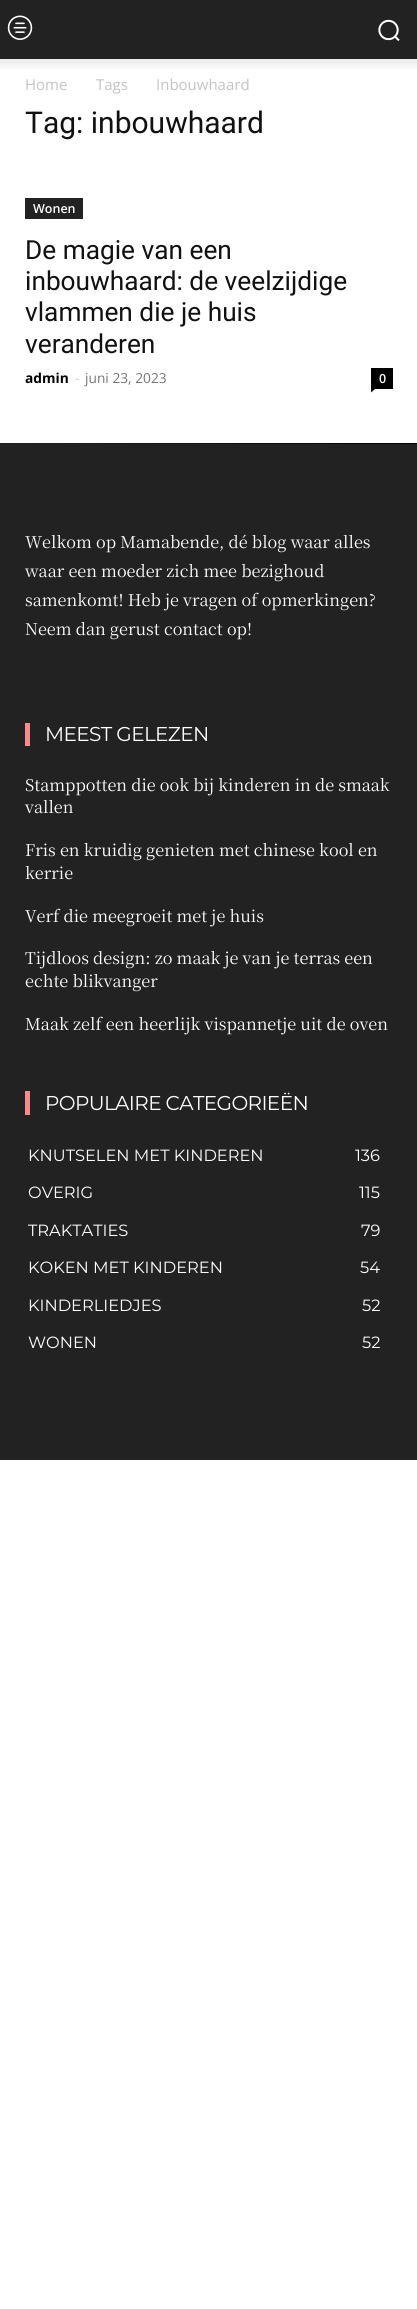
import math
import cairo

surface = cairo.ImageSurface(cairo.FORMAT_RGB24, 417, 2309)
ctx = cairo.Context(surface)
options = cairo.FontOptions()
options.set_hint_metrics(cairo.HINT_METRICS_OFF)
options.set_hint_style(cairo.HINT_STYLE_NONE)
ctx.set_font_options(options)
ctx.set_miter_limit(4)


def spaced_text(x, y, s, letter, word):
    ctx.move_to(x, y)
    for ch in s:
        ctx.show_text(ch)
        ctx.rel_move_to(letter + word * (ch == ' '), 0)


def round_rect(x, y, w, h, r):
    ctx.new_sub_path()
    for i, (u, v) in enumerate([(x + w - r, y + h - r), (x + r, y + h - r), (x + r, y + r), (x + w - r, y + r)]):
        ctx.arc(u, v, r, i * math.pi / 2, (i + 1) * math.pi / 2)
    ctx.close_path()


def shadow(x, y, w, h, r, blur, alpha):
    ctx.push_group_with_content(cairo.CONTENT_ALPHA)
    ctx.set_operator(cairo.OPERATOR_SOURCE)
    for i in range(15, -16, -2):
        e = blur * i / 6
        if min(w, h) + 2 * e > 0:
            ctx.set_source_rgba(0, 0, 0, alpha * math.erfc((i - 1) / 8.5) / 2)
            round_rect(x - e, y - e, w + 2 * e, h + 2 * e, max(0, min(r + e + blur * .6, min(w, h) / 2 + e)))
            ctx.fill()
    ctx.mask(ctx.pop_group())


def picture(path, x, y, w, h):
    ctx.save()
    ctx.set_source_surface(cairo.ImageSurface.create_from_png(path), x, y)
    ctx.rectangle(x, y, w, h)
    ctx.fill()
    ctx.restore()


ctx.set_source_rgb(1, 1, 1)
ctx.paint()
ctx.set_source_rgb(0.133, 0.133, 0.133)
ctx.rectangle(0, 0, 417, 59)
ctx.fill()
picture("img1.png", 7, 15, 26, 25)
picture("img2.png", 378, 19, 22, 22)
ctx.save()
ctx.rectangle(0, 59, 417, 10)
ctx.clip()
ctx.set_source_rgb(0, 0, 0)
shadow(-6, 8, 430, 58, 0, 5, 0.08)
ctx.restore()
ctx.select_font_face("Open Sans")
ctx.set_font_size(15)
ctx.set_source_rgb(0.765, 0.765, 0.765)
ctx.move_to(25, 90)
ctx.show_text("Home")
ctx.move_to(96, 90)
ctx.show_text("Tags")
ctx.move_to(156, 90)
ctx.show_text("Inbouwhaard")
ctx.select_font_face("Roboto")
ctx.set_font_size(30)
ctx.set_source_rgb(0.067, 0.067, 0.067)
ctx.move_to(25, 133)
ctx.show_text("Tag: inbouwhaard")
ctx.set_source_rgb(0.133, 0.133, 0.133)
ctx.rectangle(25, 198, 58, 21)
ctx.fill()
ctx.select_font_face("Open Sans SemiBold")
ctx.set_font_size(12.5)
ctx.set_source_rgb(1, 1, 1)
ctx.move_to(33, 213)
ctx.show_text("Wonen")
ctx.select_font_face("Roboto")
ctx.set_font_size(26.25)
ctx.set_source_rgb(0.067, 0.067, 0.067)
ctx.move_to(25, 259)
ctx.show_text("De magie van een")
ctx.move_to(25, 290)
ctx.show_text("inbouwhaard: de veelzijdige")
ctx.move_to(25, 321)
ctx.show_text("vlammen die je huis")
ctx.move_to(25, 353)
ctx.show_text("veranderen")
ctx.select_font_face("Open Sans", cairo.FONT_SLANT_NORMAL, cairo.FONT_WEIGHT_BOLD)
ctx.set_font_size(13.75)
ctx.set_source_rgb(0, 0, 0)
ctx.move_to(25, 383)
ctx.show_text("admin")
ctx.select_font_face("Open Sans")
ctx.set_source_rgb(0.8, 0.8, 0.8)
ctx.move_to(75, 383)
ctx.show_text("-")
ctx.set_source_rgb(0.463, 0.463, 0.463)
ctx.move_to(85, 383)
ctx.show_text("juni 23, 2023")
ctx.set_source_rgb(0, 0, 0)
ctx.rectangle(371, 368, 22, 21)
ctx.fill()
ctx.select_font_face("Open Sans SemiBold")
ctx.set_font_size(12.5)
ctx.set_source_rgb(1, 1, 1)
ctx.move_to(379, 383)
ctx.show_text("0")
ctx.set_source_rgb(0, 0, 0)
ctx.new_path()
ctx.move_to(371, 389)
ctx.line_to(375, 389)
ctx.line_to(371, 392.5)
ctx.close_path()
ctx.fill()
gradient = cairo.LinearGradient(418, 951, 0, 951)
gradient.add_color_stop_rgba(0, 0, 0, 0, 1)
gradient.add_color_stop_rgba(1, 0.133, 0.133, 0.133, 1)
ctx.set_source(gradient)
ctx.rectangle(0, 443, 417, 1)
ctx.fill()
ctx.set_source_rgb(0.133, 0.133, 0.133)
ctx.rectangle(0, 444, 417, 1016)
ctx.fill()
ctx.select_font_face("Noto Serif TC")
ctx.set_font_size(16.25)
ctx.set_source_rgb(1, 1, 1)
ctx.move_to(25, 548)
ctx.show_text("Welkom op Mamabende, dé blog waar alles")
ctx.move_to(25, 577)
ctx.show_text("waar een moeder zich mee bezighoud")
ctx.move_to(25, 606)
ctx.show_text("samenkomt! Heb je vragen of opmerkingen?")
ctx.move_to(25, 635)
ctx.show_text("Neem dan gerust contact op!")
ctx.set_source_rgb(0.969, 0.549, 0.549)
ctx.rectangle(25, 723, 5, 23)
ctx.fill()
ctx.select_font_face("Montserrat")
ctx.set_font_size(20)
ctx.set_source_rgb(1, 1, 1)
spaced_text(45, 741, "MEEST GELEZEN", -0.6, 0)
ctx.select_font_face("Noto Serif TC")
ctx.set_font_size(16.25)
ctx.move_to(25, 791)
ctx.show_text("Stamppotten die ook bij kinderen in de smaak")
ctx.move_to(25, 813)
ctx.show_text("vallen")
ctx.move_to(25, 856)
ctx.show_text("Fris en kruidig genieten met chinese kool en")
ctx.move_to(25, 879)
ctx.show_text("kerrie")
ctx.move_to(25, 922)
ctx.show_text("Verf die meegroeit met je huis")
ctx.move_to(25, 964)
ctx.show_text("Tijdloos design: zo maak je van je terras een")
ctx.move_to(25, 987)
ctx.show_text("echte blikvanger")
ctx.move_to(25, 1030)
ctx.show_text("Maak zelf een heerlijk vispannetje uit de oven")
ctx.set_source_rgb(0.969, 0.549, 0.549)
ctx.rectangle(25, 1091, 5, 24)
ctx.fill()
ctx.select_font_face("Montserrat")
ctx.set_font_size(20)
ctx.set_source_rgb(1, 1, 1)
spaced_text(45, 1110, "POPULAIRE CATEGORIEËN", -0.6, 0)
ctx.set_font_size(16.25)
ctx.move_to(28, 1161)
ctx.show_text("KNUTSELEN MET KINDEREN")
ctx.move_to(355, 1161)
ctx.show_text("136")
ctx.move_to(28, 1198)
ctx.show_text("OVERIG")
ctx.move_to(359, 1198)
ctx.show_text("115")
ctx.move_to(28, 1236)
ctx.show_text("TRAKTATIES")
ctx.move_to(361, 1236)
ctx.show_text("79")
ctx.move_to(28, 1273)
ctx.show_text("KOKEN MET KINDEREN")
ctx.move_to(360, 1273)
ctx.show_text("54")
ctx.move_to(28, 1311)
ctx.show_text("KINDERLIEDJES")
ctx.move_to(362, 1311)
ctx.show_text("52")
ctx.move_to(28, 1348)
ctx.show_text("WONEN")
ctx.move_to(362, 1348)
ctx.show_text("52")
surface.write_to_png("page.png")
